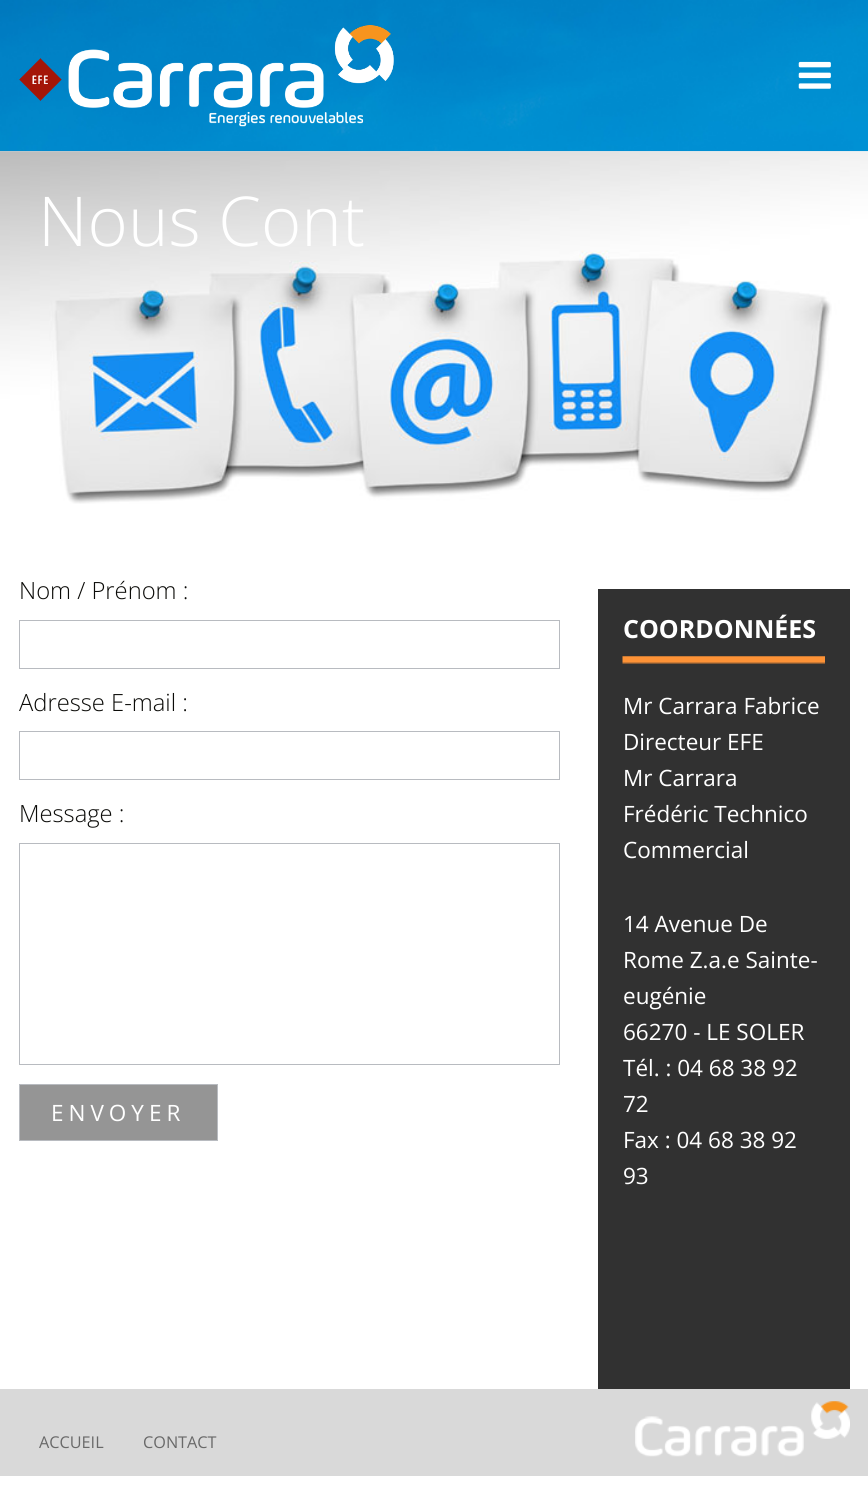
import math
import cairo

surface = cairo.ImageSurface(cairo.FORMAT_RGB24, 868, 1503)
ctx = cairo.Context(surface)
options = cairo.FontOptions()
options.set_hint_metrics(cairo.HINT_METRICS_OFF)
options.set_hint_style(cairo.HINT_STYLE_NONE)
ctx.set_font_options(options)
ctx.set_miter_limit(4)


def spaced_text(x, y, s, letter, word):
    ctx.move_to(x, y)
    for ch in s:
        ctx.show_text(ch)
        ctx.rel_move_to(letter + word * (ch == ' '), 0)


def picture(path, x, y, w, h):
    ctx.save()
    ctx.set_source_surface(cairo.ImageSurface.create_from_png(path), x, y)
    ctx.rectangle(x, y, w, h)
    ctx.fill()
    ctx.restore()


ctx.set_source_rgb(1, 1, 1)
ctx.paint()
picture("img2.png", 0, 0, 868, 152)
picture("img1.png", 798, 61, 33, 28)
picture("img3.png", 19, 25, 375, 102)
picture("img4.png", 0, 151, 868, 353)
ctx.select_font_face("Open Sans Light")
ctx.set_font_size(68.75)
ctx.set_source_rgb(1, 1, 1)
ctx.move_to(38, 246)
ctx.show_text("Nous Cont")
ctx.set_font_size(23.75)
ctx.set_source_rgb(0.043, 0.043, 0.035)
ctx.move_to(19, 599)
ctx.show_text("Nom / Prénom :")
ctx.rectangle(19.5, 620.5, 540, 48)
ctx.set_source_rgb(0.722, 0.733, 0.753)
ctx.set_line_width(1)
ctx.stroke()
ctx.set_source_rgb(0.043, 0.043, 0.035)
ctx.move_to(19, 711)
ctx.show_text("Adresse E-mail :")
ctx.rectangle(19.5, 731.5, 540, 48)
ctx.set_source_rgb(0.722, 0.733, 0.753)
ctx.stroke()
ctx.set_source_rgb(0.043, 0.043, 0.035)
ctx.move_to(19, 822)
ctx.show_text("Message :")
ctx.rectangle(19.5, 843.5, 540, 221)
ctx.set_source_rgb(0.722, 0.733, 0.753)
ctx.stroke()
ctx.set_source_rgb(0.584, 0.584, 0.584)
ctx.rectangle(19.5, 1084.5, 198, 56)
ctx.fill_preserve()
ctx.set_source_rgb(0.722, 0.733, 0.753)
ctx.stroke()
ctx.select_font_face("Open Sans")
ctx.set_font_size(22.5)
ctx.set_source_rgb(1, 1, 1)
spaced_text(51, 1121, "ENVOYER", 5, 0)
ctx.set_source_rgb(0.192, 0.192, 0.192)
ctx.rectangle(598, 589, 252, 800)
ctx.fill()
picture("img5.png", 622, 656, 203, 8)
ctx.select_font_face("Open Sans", cairo.FONT_SLANT_NORMAL, cairo.FONT_WEIGHT_BOLD)
ctx.set_font_size(25)
ctx.set_source_rgb(1, 1, 1)
ctx.move_to(623, 638)
ctx.show_text("COORDONNÉES")
ctx.select_font_face("Open Sans")
ctx.set_font_size(22.5)
ctx.move_to(623, 714)
ctx.show_text("Mr Carrara Fabrice")
ctx.move_to(623, 750)
ctx.show_text("Directeur EFE")
ctx.move_to(623, 786)
ctx.show_text("Mr Carrara")
ctx.move_to(623, 822)
ctx.show_text("Frédéric Technico")
ctx.move_to(623, 858)
ctx.show_text("Commercial")
ctx.move_to(623, 932)
ctx.show_text("14 Avenue De")
ctx.move_to(623, 968)
ctx.show_text("Rome Z.a.e Sainte-")
ctx.move_to(623, 1004)
ctx.show_text("eugénie")
ctx.move_to(623, 1040)
ctx.show_text("66270 - LE SOLER")
ctx.move_to(623, 1076)
ctx.show_text("Tél. : 04 68 38 92")
ctx.move_to(623, 1112)
ctx.show_text("72")
ctx.move_to(623, 1148)
ctx.show_text("Fax : 04 68 38 92")
ctx.move_to(623, 1184)
ctx.show_text("93")
ctx.set_source_rgb(0.851, 0.851, 0.851)
ctx.rectangle(0, 1389, 868, 87)
ctx.fill()
ctx.set_font_size(16.25)
ctx.set_source_rgb(0.412, 0.412, 0.412)
ctx.move_to(39, 1448)
ctx.show_text("ACCUEIL")
ctx.move_to(143, 1448)
ctx.show_text("CONTACT")
picture("img6.png", 635, 1401, 215, 56)
surface.write_to_png("page.png")
